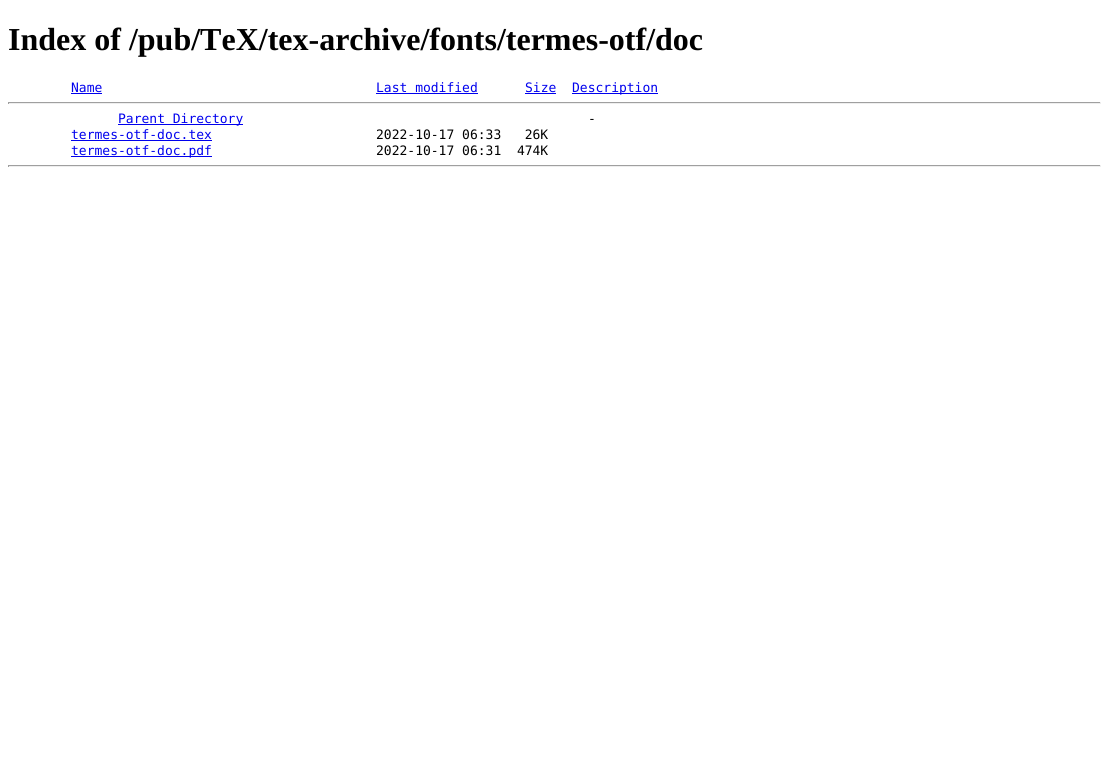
import math
import cairo

surface = cairo.ImageSurface(cairo.FORMAT_RGB24, 1109, 771)
ctx = cairo.Context(surface)
options = cairo.FontOptions()
options.set_hint_metrics(cairo.HINT_METRICS_OFF)
options.set_hint_style(cairo.HINT_STYLE_NONE)
ctx.set_font_options(options)
ctx.set_miter_limit(4)


ctx.set_source_rgb(1, 1, 1)
ctx.paint()
ctx.select_font_face("Liberation Serif", cairo.FONT_SLANT_NORMAL, cairo.FONT_WEIGHT_BOLD)
ctx.set_font_size(32)
ctx.set_source_rgb(0, 0, 0)
ctx.move_to(8, 50)
ctx.show_text("Index of /pub/TeX/tex-archive/fonts/termes-otf/doc")
ctx.select_font_face("DejaVu Sans Mono")
ctx.set_font_size(13)
ctx.set_source_rgb(0, 0, 0.933)
ctx.move_to(71, 92)
ctx.show_text("Name")
ctx.rectangle(71, 93, 31, 1)
ctx.fill()
ctx.move_to(376, 92)
ctx.show_text("Last modified")
ctx.rectangle(376, 93, 102, 1)
ctx.fill()
ctx.move_to(525, 92)
ctx.show_text("Size")
ctx.rectangle(525, 93, 31, 1)
ctx.fill()
ctx.rectangle(572, 93, 86, 1)
ctx.fill()
ctx.move_to(572, 92)
ctx.show_text("Description")
ctx.set_source_rgb(0.624, 0.624, 0.624)
ctx.rectangle(8, 102, 1093, 1)
ctx.fill()
ctx.set_source_rgb(0.933, 0.933, 0.933)
ctx.rectangle(1100, 102, 1, 2)
ctx.fill()
ctx.rectangle(8, 103, 1093, 1)
ctx.fill()
ctx.set_source_rgb(0.624, 0.624, 0.624)
ctx.rectangle(8, 102, 1, 2)
ctx.fill()
ctx.set_source_rgb(0, 0, 0.933)
ctx.rectangle(118, 124, 125, 1)
ctx.fill()
ctx.move_to(118, 123)
ctx.show_text("Parent Directory")
ctx.set_source_rgb(0, 0, 0)
ctx.move_to(588, 123)
ctx.show_text("-")
ctx.set_source_rgb(0, 0, 0.933)
ctx.move_to(71, 139)
ctx.show_text("termes-otf-doc.tex")
ctx.rectangle(71, 140, 141, 1)
ctx.fill()
ctx.set_source_rgb(0, 0, 0)
ctx.move_to(376, 139)
ctx.show_text("2022-10-17 06:33   26K")
ctx.set_source_rgb(0, 0, 0.933)
ctx.rectangle(71, 156, 141, 1)
ctx.fill()
ctx.move_to(71, 155)
ctx.show_text("termes-otf-doc.pdf")
ctx.set_source_rgb(0, 0, 0)
ctx.move_to(376, 155)
ctx.show_text("2022-10-17 06:31  474K")
ctx.set_source_rgb(0.624, 0.624, 0.624)
ctx.rectangle(8, 165, 1093, 1)
ctx.fill()
ctx.set_source_rgb(0.933, 0.933, 0.933)
ctx.rectangle(1100, 165, 1, 2)
ctx.fill()
ctx.rectangle(8, 166, 1093, 1)
ctx.fill()
ctx.set_source_rgb(0.624, 0.624, 0.624)
ctx.rectangle(8, 165, 1, 2)
ctx.fill()
surface.write_to_png("page.png")
